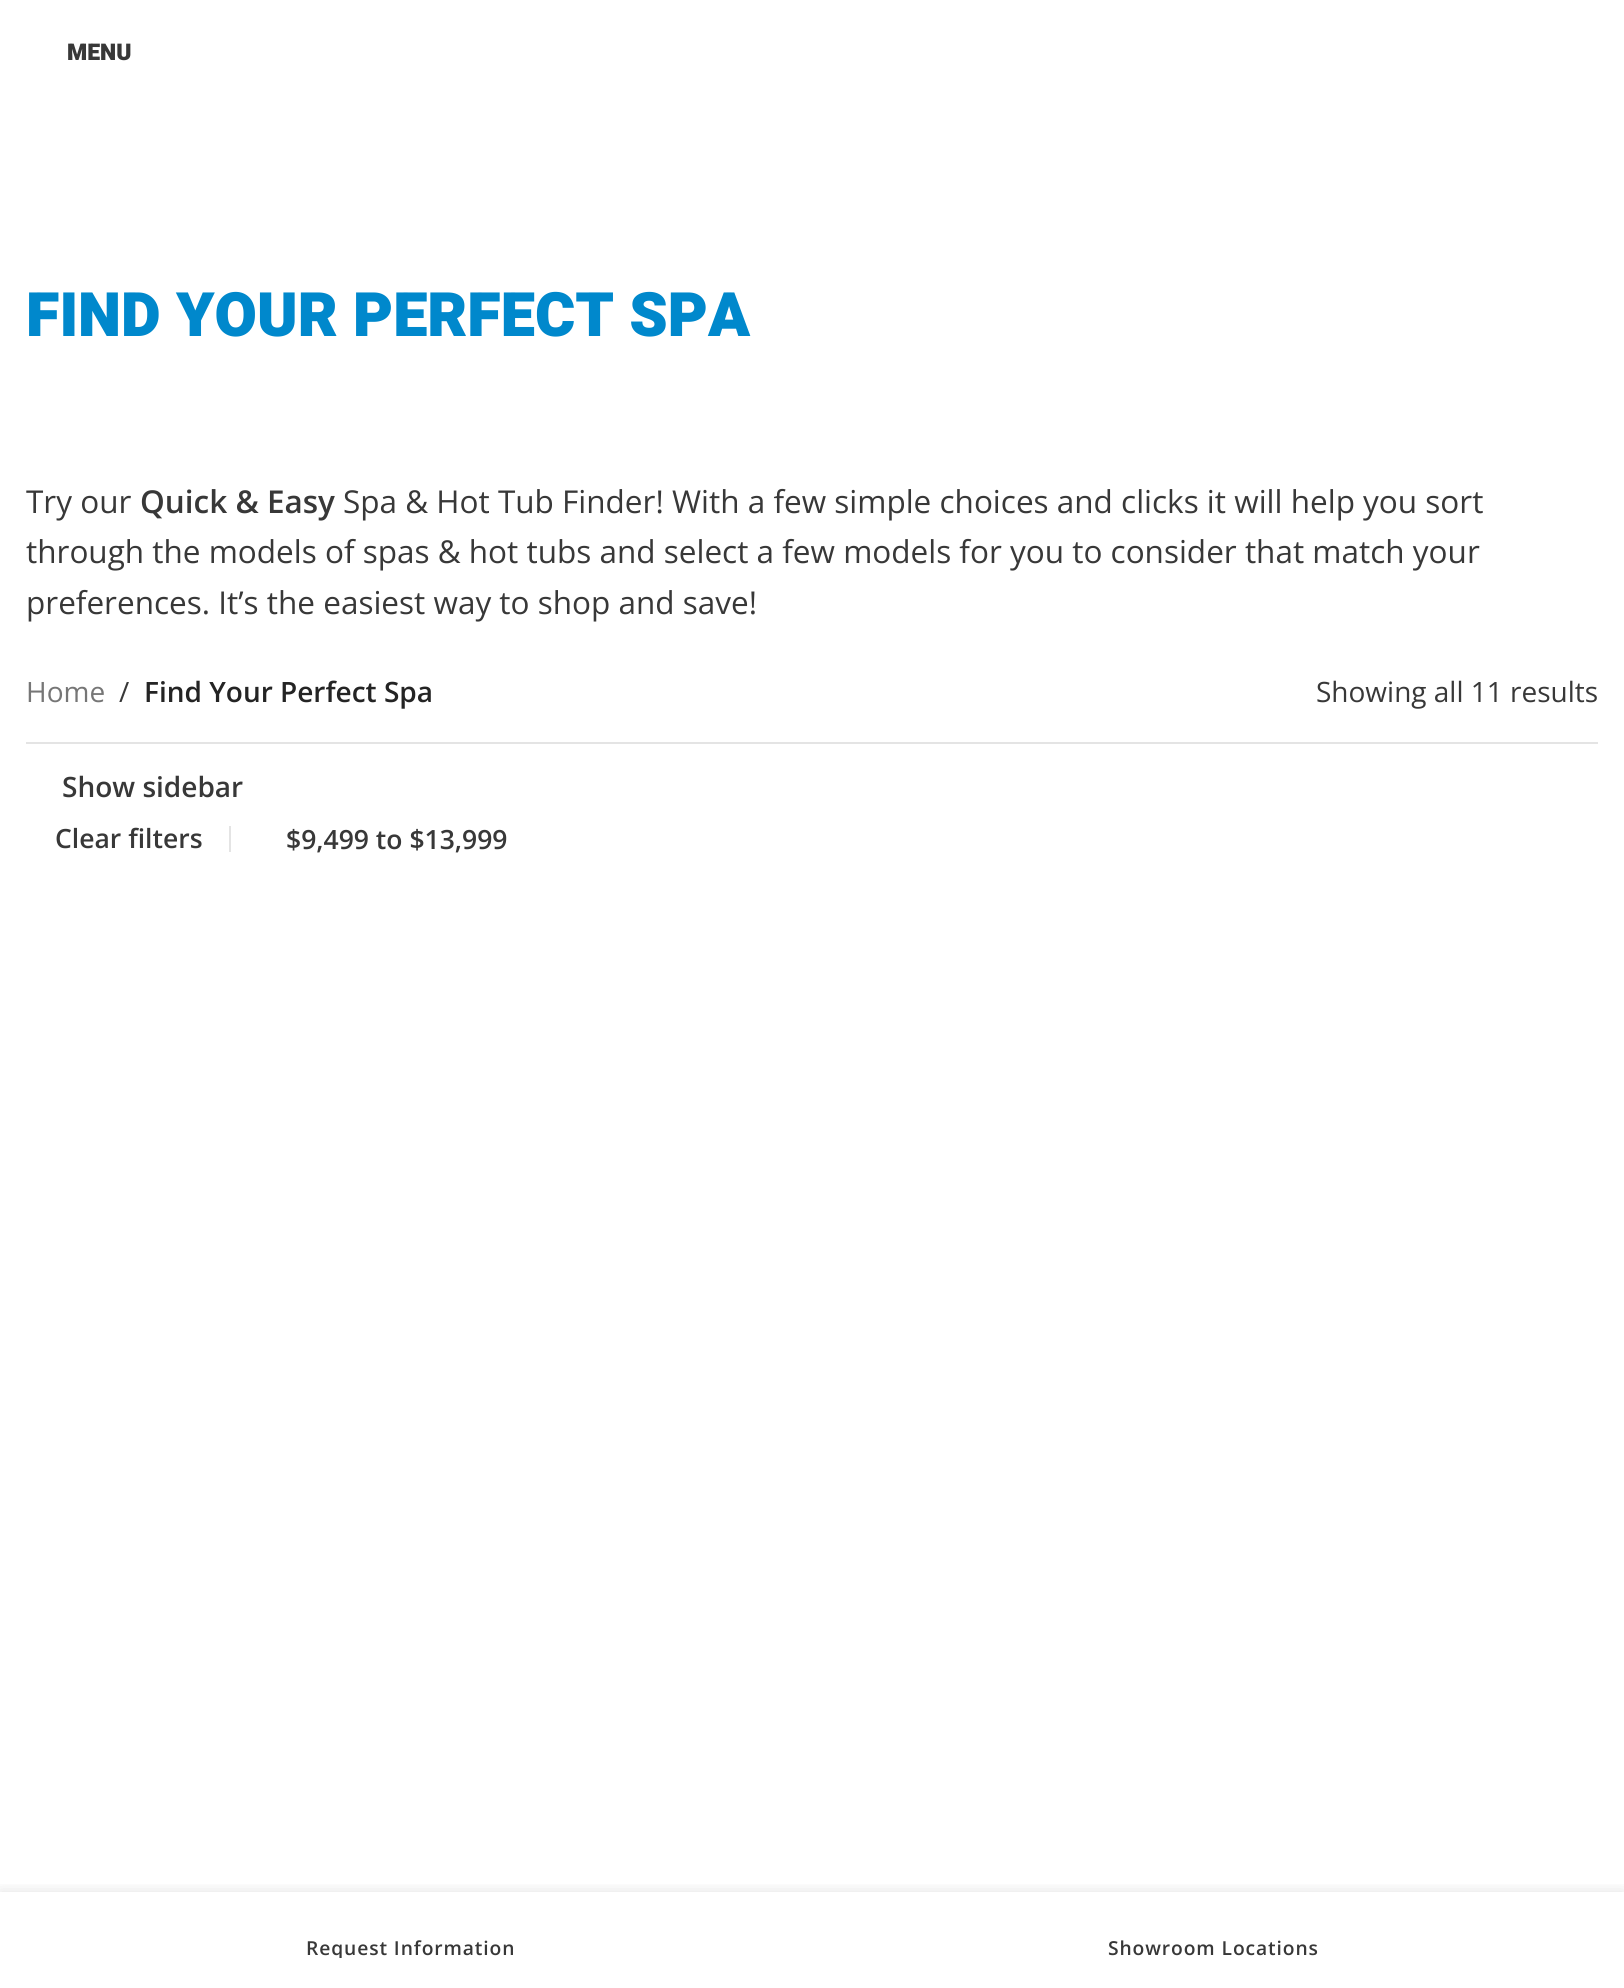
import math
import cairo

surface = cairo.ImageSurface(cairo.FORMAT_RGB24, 1624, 1988)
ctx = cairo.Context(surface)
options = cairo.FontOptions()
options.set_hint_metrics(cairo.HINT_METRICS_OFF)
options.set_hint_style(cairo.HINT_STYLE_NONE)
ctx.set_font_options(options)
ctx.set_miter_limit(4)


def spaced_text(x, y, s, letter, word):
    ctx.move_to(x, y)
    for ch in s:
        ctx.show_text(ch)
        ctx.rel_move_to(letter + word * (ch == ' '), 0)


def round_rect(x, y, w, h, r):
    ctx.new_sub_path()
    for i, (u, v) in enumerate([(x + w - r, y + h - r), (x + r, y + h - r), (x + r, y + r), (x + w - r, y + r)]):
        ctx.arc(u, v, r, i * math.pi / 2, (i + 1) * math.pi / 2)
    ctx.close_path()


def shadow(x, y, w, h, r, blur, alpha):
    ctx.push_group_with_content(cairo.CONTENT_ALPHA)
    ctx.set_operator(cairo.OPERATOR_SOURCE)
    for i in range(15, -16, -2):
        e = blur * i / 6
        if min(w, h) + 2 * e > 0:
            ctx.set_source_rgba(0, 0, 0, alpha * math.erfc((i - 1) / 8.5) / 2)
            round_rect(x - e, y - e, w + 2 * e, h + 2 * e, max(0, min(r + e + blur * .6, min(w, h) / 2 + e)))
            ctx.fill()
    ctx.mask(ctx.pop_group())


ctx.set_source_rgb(1, 1, 1)
ctx.paint()
ctx.select_font_face("Heebo Black")
ctx.set_font_size(23)
ctx.set_source_rgb(0.22, 0.22, 0.22)
ctx.move_to(67, 60)
ctx.show_text("MENU")
ctx.set_font_size(61.25)
ctx.set_source_rgb(0, 0.533, 0.8)
ctx.move_to(26, 336)
ctx.show_text("FIND YOUR PERFECT SPA")
ctx.select_font_face("Open Sans")
ctx.set_font_size(31.5)
ctx.set_source_rgb(0.22, 0.22, 0.22)
ctx.move_to(26, 513)
ctx.show_text("Try our")
ctx.select_font_face("Open Sans SemiBold")
ctx.move_to(140, 513)
ctx.show_text("Quick & Easy")
ctx.select_font_face("Open Sans")
ctx.move_to(343, 513)
ctx.show_text("Spa & Hot Tub Finder! With a few simple choices and clicks it will help you sort")
ctx.move_to(26, 563)
ctx.show_text("through the models of spas & hot tubs and select a few models for you to consider that match your")
ctx.move_to(26, 614)
ctx.show_text("preferences. It’s the easiest way to shop and save!")
ctx.set_source_rgb(0.894, 0.894, 0.894)
ctx.rectangle(26, 742, 1572, 2)
ctx.fill()
ctx.set_font_size(28)
ctx.set_source_rgb(0.463, 0.463, 0.463)
ctx.move_to(26, 702)
ctx.show_text("Home")
ctx.set_source_rgb(0.22, 0.22, 0.22)
ctx.move_to(119, 702)
ctx.show_text("/")
ctx.select_font_face("Open Sans SemiBold")
ctx.set_source_rgb(0.141, 0.141, 0.141)
ctx.move_to(144, 702)
ctx.show_text("Find Your Perfect Spa")
ctx.select_font_face("Open Sans")
ctx.set_source_rgb(0.22, 0.22, 0.22)
ctx.move_to(1316, 702)
ctx.show_text("Showing all 11 results")
ctx.select_font_face("Open Sans SemiBold")
ctx.move_to(62, 797)
ctx.show_text("Show sidebar")
ctx.set_source_rgb(0.894, 0.894, 0.894)
ctx.rectangle(229, 826, 2, 26)
ctx.fill()
ctx.set_font_size(26.5)
ctx.set_source_rgb(0.22, 0.22, 0.22)
ctx.move_to(55, 848)
ctx.show_text("Clear filters")
ctx.move_to(286, 849)
ctx.show_text("$9,499 to $13,999")
ctx.save()
ctx.rectangle(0, 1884, 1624, 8)
ctx.clip()
ctx.set_source_rgb(0, 0, 0)
shadow(0, 1892, 1624, 96, 0, 8, 0.12)
ctx.restore()
ctx.save()
ctx.rectangle(26, 1936, 769, 22)
ctx.clip()
ctx.set_font_size(19.25)
spaced_text(306, 1955, "Request Information", 0.9, 0)
ctx.restore()
ctx.set_font_size(19.25)
spaced_text(1108, 1955, "Showroom Locations", 0.9, 0)
surface.write_to_png("page.png")
